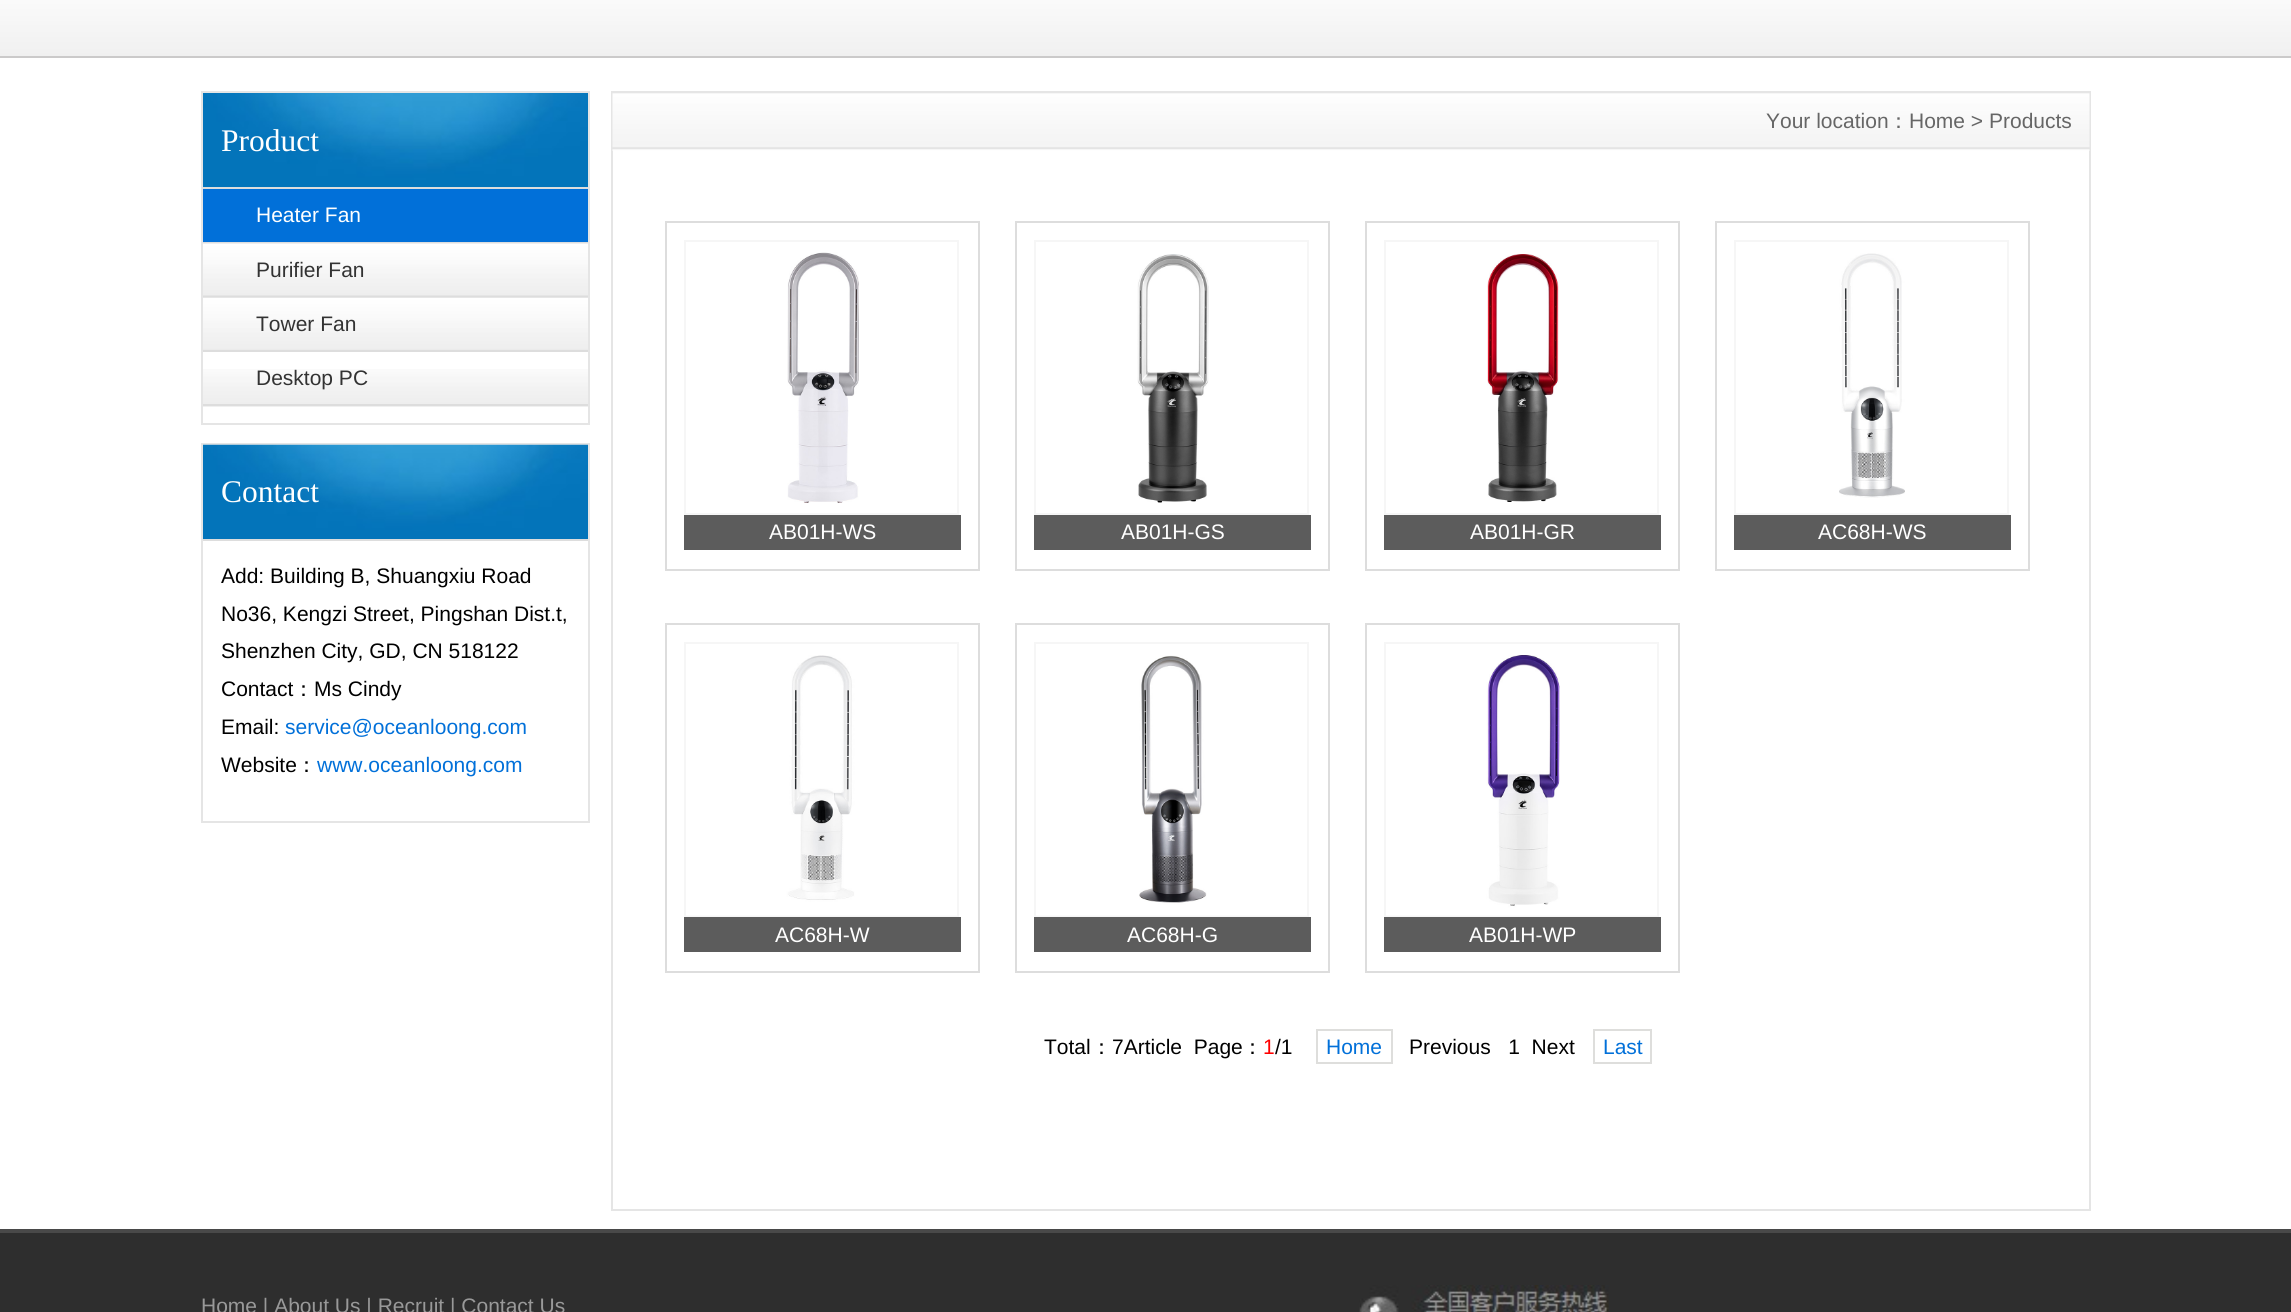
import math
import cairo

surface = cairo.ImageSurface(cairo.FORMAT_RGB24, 2291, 1312)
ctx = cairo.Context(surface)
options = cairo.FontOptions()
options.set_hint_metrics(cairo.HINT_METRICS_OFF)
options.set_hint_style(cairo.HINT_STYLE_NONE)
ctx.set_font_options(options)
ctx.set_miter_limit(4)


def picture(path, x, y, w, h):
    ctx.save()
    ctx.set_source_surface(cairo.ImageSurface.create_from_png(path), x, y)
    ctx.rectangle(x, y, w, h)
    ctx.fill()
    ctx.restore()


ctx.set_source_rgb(1, 1, 1)
ctx.paint()
picture("img1.png", 0, 0, 2291, 56)
ctx.set_source_rgb(0.796, 0.792, 0.792)
ctx.rectangle(0, 56, 2291, 2)
ctx.fill()
ctx.rectangle(202, 92, 387, 332)
ctx.set_source_rgb(0.898, 0.898, 0.898)
ctx.stroke()
picture("img2.png", 203, 93, 385, 94)
ctx.set_source_rgb(0.867, 0.867, 0.867)
ctx.rectangle(203, 187, 385, 2)
ctx.fill()
ctx.select_font_face("Liberation Serif")
ctx.set_font_size(31.5)
ctx.set_source_rgb(1, 1, 1)
ctx.move_to(221, 151)
ctx.show_text("Product")
ctx.set_source_rgb(0.004, 0.439, 0.851)
ctx.rectangle(203, 189, 385, 53)
ctx.fill()
ctx.set_source_rgb(0.867, 0.867, 0.867)
ctx.rectangle(203, 242, 385, 2)
ctx.fill()
ctx.select_font_face("Liberation Sans")
ctx.set_font_size(21)
ctx.set_source_rgb(1, 1, 1)
ctx.move_to(256, 222)
ctx.show_text("Heater Fan")
picture("img3.png", 203, 243, 385, 53)
ctx.set_source_rgb(0.867, 0.867, 0.867)
ctx.rectangle(203, 296, 385, 2)
ctx.fill()
ctx.set_source_rgb(0.2, 0.2, 0.2)
ctx.move_to(256, 277)
ctx.show_text("Purifier Fan")
picture("img4.png", 203, 297, 385, 53)
ctx.set_source_rgb(0.867, 0.867, 0.867)
ctx.rectangle(203, 350, 385, 2)
ctx.fill()
ctx.set_source_rgb(0.2, 0.2, 0.2)
ctx.move_to(256, 331)
ctx.show_text("Tower Fan")
picture("img5.png", 203, 369, 385, 38)
ctx.set_source_rgb(0.867, 0.867, 0.867)
ctx.rectangle(203, 404, 385, 2)
ctx.fill()
ctx.set_source_rgb(0.2, 0.2, 0.2)
ctx.move_to(256, 385)
ctx.show_text("Desktop PC")
ctx.rectangle(202, 444, 387, 378)
ctx.set_source_rgb(0.898, 0.898, 0.898)
ctx.stroke()
picture("img6.png", 203, 444, 385, 95)
ctx.set_source_rgb(0.867, 0.867, 0.867)
ctx.rectangle(203, 539, 385, 2)
ctx.fill()
ctx.select_font_face("Liberation Serif")
ctx.set_font_size(31.5)
ctx.set_source_rgb(1, 1, 1)
ctx.move_to(221, 502)
ctx.show_text("Contact")
ctx.select_font_face("Liberation Sans")
ctx.set_font_size(21)
ctx.set_source_rgb(0, 0, 0)
ctx.move_to(221, 583)
ctx.show_text("Add: Building B, Shuangxiu Road")
ctx.move_to(221, 621)
ctx.show_text("No36, Kengzi Street, Pingshan Dist.t,")
ctx.move_to(221, 658)
ctx.show_text("Shenzhen City, GD, CN 518122")
ctx.move_to(221, 696)
ctx.show_text("Contact")
ctx.select_font_face("WenQuanYi Zen Hei Medium")
ctx.move_to(293, 696)
ctx.show_text("：")
ctx.select_font_face("Liberation Sans")
ctx.move_to(314, 696)
ctx.show_text("Ms Cindy")
ctx.move_to(221, 734)
ctx.show_text("Email:")
ctx.set_source_rgb(0.004, 0.439, 0.851)
ctx.move_to(285, 734)
ctx.show_text("service@oceanloong.com")
ctx.set_source_rgb(0, 0, 0)
ctx.move_to(221, 772)
ctx.show_text("Website")
ctx.select_font_face("WenQuanYi Zen Hei Medium")
ctx.move_to(296, 772)
ctx.show_text("：")
ctx.select_font_face("Liberation Sans")
ctx.set_source_rgb(0.004, 0.439, 0.851)
ctx.move_to(317, 772)
ctx.show_text("www.oceanloong.com")
ctx.rectangle(612, 92, 1478, 1118)
ctx.set_source_rgb(0.898, 0.898, 0.898)
ctx.stroke()
picture("img7.png", 612, 93, 1478, 58)
ctx.set_source_rgb(0.4, 0.4, 0.4)
ctx.move_to(1766, 128)
ctx.show_text("Your location")
ctx.select_font_face("WenQuanYi Zen Hei Medium")
ctx.move_to(1888, 128)
ctx.show_text("：")
ctx.select_font_face("Liberation Sans")
ctx.move_to(1909, 128)
ctx.show_text("Home > Products")
ctx.rectangle(666, 222, 313, 348)
ctx.set_source_rgb(0.867, 0.867, 0.867)
ctx.stroke()
ctx.rectangle(685, 241, 273, 273)
ctx.set_source_rgb(0.961, 0.961, 0.961)
ctx.stroke()
picture("img8.png", 787, 252, 72, 251)
ctx.set_source_rgb(0.361, 0.361, 0.361)
ctx.rectangle(684, 515, 277, 35)
ctx.fill()
ctx.set_source_rgb(1, 1, 1)
ctx.move_to(769, 539)
ctx.show_text("AB01H-WS")
ctx.rectangle(1016, 222, 313, 348)
ctx.set_source_rgb(0.867, 0.867, 0.867)
ctx.stroke()
ctx.rectangle(1035, 241, 273, 273)
ctx.set_source_rgb(0.961, 0.961, 0.961)
ctx.stroke()
picture("img9.png", 1137, 254, 72, 249)
ctx.set_source_rgb(0.361, 0.361, 0.361)
ctx.rectangle(1034, 515, 277, 35)
ctx.fill()
ctx.set_source_rgb(1, 1, 1)
ctx.move_to(1121, 539)
ctx.show_text("AB01H-GS")
ctx.rectangle(1366, 222, 313, 348)
ctx.set_source_rgb(0.867, 0.867, 0.867)
ctx.stroke()
ctx.rectangle(1385, 241, 273, 273)
ctx.set_source_rgb(0.961, 0.961, 0.961)
ctx.stroke()
picture("img10.png", 1487, 254, 72, 248)
ctx.set_source_rgb(0.361, 0.361, 0.361)
ctx.rectangle(1384, 515, 277, 35)
ctx.fill()
ctx.set_source_rgb(1, 1, 1)
ctx.move_to(1470, 539)
ctx.show_text("AB01H-GR")
ctx.rectangle(1716, 222, 313, 348)
ctx.set_source_rgb(0.867, 0.867, 0.867)
ctx.stroke()
ctx.rectangle(1735, 241, 273, 273)
ctx.set_source_rgb(0.961, 0.961, 0.961)
ctx.stroke()
picture("img11.png", 1839, 253, 66, 245)
ctx.set_source_rgb(0.361, 0.361, 0.361)
ctx.rectangle(1734, 515, 277, 35)
ctx.fill()
ctx.set_source_rgb(1, 1, 1)
ctx.move_to(1818, 539)
ctx.show_text("AC68H-WS")
ctx.rectangle(666, 624, 313, 348)
ctx.set_source_rgb(0.867, 0.867, 0.867)
ctx.stroke()
ctx.rectangle(685, 643, 273, 273)
ctx.set_source_rgb(0.961, 0.961, 0.961)
ctx.stroke()
picture("img12.png", 686, 655, 271, 261)
ctx.set_source_rgb(0.361, 0.361, 0.361)
ctx.rectangle(684, 917, 277, 35)
ctx.fill()
ctx.set_source_rgb(1, 1, 1)
ctx.move_to(775, 942)
ctx.show_text("AC68H-W")
ctx.rectangle(1016, 624, 313, 348)
ctx.set_source_rgb(0.867, 0.867, 0.867)
ctx.stroke()
ctx.rectangle(1035, 643, 273, 273)
ctx.set_source_rgb(0.961, 0.961, 0.961)
ctx.stroke()
picture("img13.png", 1036, 655, 271, 261)
ctx.set_source_rgb(0.361, 0.361, 0.361)
ctx.rectangle(1034, 917, 277, 35)
ctx.fill()
ctx.set_source_rgb(1, 1, 1)
ctx.move_to(1127, 942)
ctx.show_text("AC68H-G")
ctx.rectangle(1366, 624, 313, 348)
ctx.set_source_rgb(0.867, 0.867, 0.867)
ctx.stroke()
ctx.rectangle(1385, 643, 273, 273)
ctx.set_source_rgb(0.961, 0.961, 0.961)
ctx.stroke()
picture("img14.png", 1386, 655, 271, 261)
ctx.set_source_rgb(0.361, 0.361, 0.361)
ctx.rectangle(1384, 917, 277, 35)
ctx.fill()
ctx.set_source_rgb(1, 1, 1)
ctx.move_to(1469, 942)
ctx.show_text("AB01H-WP")
ctx.set_source_rgb(0, 0, 0)
ctx.move_to(1044, 1054)
ctx.show_text("Total")
ctx.select_font_face("WenQuanYi Zen Hei Medium")
ctx.move_to(1091, 1054)
ctx.show_text("：")
ctx.select_font_face("Liberation Sans")
ctx.move_to(1112, 1054)
ctx.show_text("7Article  Page")
ctx.select_font_face("WenQuanYi Zen Hei Medium")
ctx.move_to(1242, 1054)
ctx.show_text("：")
ctx.select_font_face("Liberation Sans")
ctx.set_source_rgb(1, 0, 0)
ctx.move_to(1263, 1054)
ctx.show_text("1")
ctx.set_source_rgb(0, 0, 0)
ctx.move_to(1275, 1054)
ctx.show_text("/1")
ctx.rectangle(1317, 1030, 75, 33)
ctx.set_source_rgb(0.871, 0.871, 0.863)
ctx.stroke()
ctx.set_source_rgb(0.004, 0.439, 0.851)
ctx.move_to(1326, 1054)
ctx.show_text("Home")
ctx.set_source_rgb(0, 0, 0)
ctx.move_to(1409, 1054)
ctx.show_text("Previous   1  Next")
ctx.rectangle(1594, 1030, 57, 33)
ctx.set_source_rgb(0.871, 0.871, 0.863)
ctx.stroke()
ctx.set_source_rgb(0.004, 0.439, 0.851)
ctx.move_to(1603, 1054)
ctx.show_text("Last")
ctx.set_source_rgb(0.18, 0.18, 0.18)
ctx.rectangle(0, 1233, 2291, 79)
ctx.fill()
ctx.set_source_rgb(0.286, 0.286, 0.286)
ctx.rectangle(0, 1229, 2291, 4)
ctx.fill()
ctx.set_source_rgb(0.6, 0.6, 0.6)
ctx.move_to(201, 1313)
ctx.show_text("Home | About Us | Recruit | Contact Us")
picture("img15.png", 1359, 1285, 250, 27)
surface.write_to_png("page.png")
